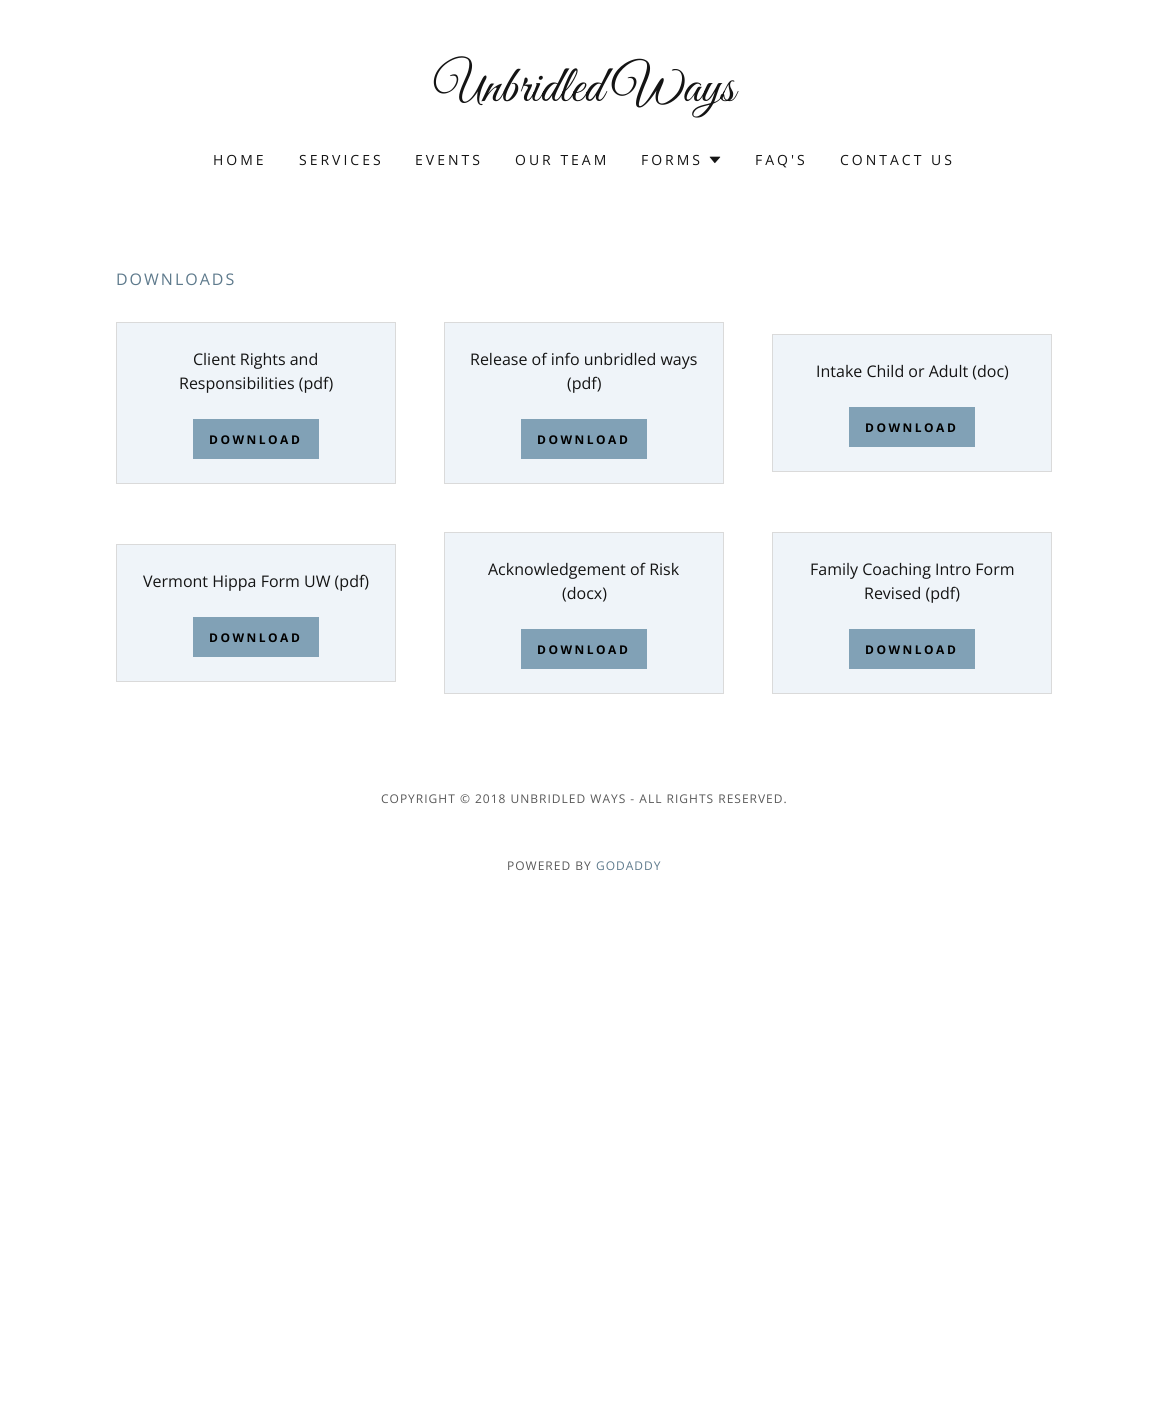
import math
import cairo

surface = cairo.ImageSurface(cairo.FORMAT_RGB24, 1168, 1403)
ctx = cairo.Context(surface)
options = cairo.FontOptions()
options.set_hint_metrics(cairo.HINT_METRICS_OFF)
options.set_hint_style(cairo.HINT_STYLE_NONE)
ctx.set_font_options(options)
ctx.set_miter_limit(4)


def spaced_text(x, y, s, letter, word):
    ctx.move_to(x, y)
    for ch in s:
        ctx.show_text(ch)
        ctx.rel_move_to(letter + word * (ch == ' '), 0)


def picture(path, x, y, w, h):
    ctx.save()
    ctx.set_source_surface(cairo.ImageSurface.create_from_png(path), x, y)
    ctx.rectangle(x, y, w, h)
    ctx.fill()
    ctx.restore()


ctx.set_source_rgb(1, 1, 1)
ctx.paint()
ctx.select_font_face("Great Vibes")
ctx.set_font_size(52)
ctx.set_source_rgb(0.082, 0.082, 0.082)
ctx.move_to(434, 101)
ctx.show_text("Unbridled Ways")
ctx.select_font_face("Open Sans")
ctx.set_font_size(14)
spaced_text(213, 165, "HOME", 3, 0)
spaced_text(299, 165, "SERVICES", 3, 0)
spaced_text(415, 165, "EVENTS", 3, 0)
spaced_text(515, 165, "OUR TEAM", 3, 0)
spaced_text(641, 165, "FORMS", 3, 0)
picture("img1.png", 709, 156, 12, 8)
spaced_text(755, 165, "FAQ'S", 3, 0)
spaced_text(840, 165, "CONTACT US", 3, 0)
ctx.set_font_size(16)
ctx.set_source_rgb(0.369, 0.478, 0.549)
spaced_text(116, 285, "DOWNLOADS", 2, 0)
ctx.set_source_rgb(0.937, 0.957, 0.973)
ctx.rectangle(116.5, 322.5, 279, 161)
ctx.fill_preserve()
ctx.set_source_rgb(0.855, 0.855, 0.855)
ctx.set_line_width(1)
ctx.stroke()
ctx.set_source_rgb(0.082, 0.082, 0.082)
ctx.move_to(193, 365)
ctx.show_text("Client Rights and")
ctx.move_to(179, 389)
ctx.show_text("Responsibilities (pdf)")
ctx.set_source_rgb(0.506, 0.631, 0.714)
ctx.rectangle(193, 419, 126, 40)
ctx.fill()
ctx.select_font_face("Open Sans", cairo.FONT_SLANT_NORMAL, cairo.FONT_WEIGHT_BOLD)
ctx.set_font_size(12)
ctx.set_source_rgb(0, 0, 0)
spaced_text(209, 444, "DOWNLOAD", 2.5, 0)
ctx.set_source_rgb(0.937, 0.957, 0.973)
ctx.rectangle(444.5, 322.5, 279, 161)
ctx.fill_preserve()
ctx.set_source_rgb(0.855, 0.855, 0.855)
ctx.stroke()
ctx.select_font_face("Open Sans")
ctx.set_font_size(16)
ctx.set_source_rgb(0.082, 0.082, 0.082)
ctx.move_to(470, 365)
ctx.show_text("Release of info unbridled ways")
ctx.move_to(567, 389)
ctx.show_text("(pdf)")
ctx.set_source_rgb(0.506, 0.631, 0.714)
ctx.rectangle(521, 419, 126, 40)
ctx.fill()
ctx.select_font_face("Open Sans", cairo.FONT_SLANT_NORMAL, cairo.FONT_WEIGHT_BOLD)
ctx.set_font_size(12)
ctx.set_source_rgb(0, 0, 0)
spaced_text(537, 444, "DOWNLOAD", 2.5, 0)
ctx.set_source_rgb(0.937, 0.957, 0.973)
ctx.rectangle(772.5, 334.5, 279, 137)
ctx.fill_preserve()
ctx.set_source_rgb(0.855, 0.855, 0.855)
ctx.stroke()
ctx.select_font_face("Open Sans")
ctx.set_font_size(16)
ctx.set_source_rgb(0.082, 0.082, 0.082)
ctx.move_to(816, 377)
ctx.show_text("Intake Child or Adult (doc)")
ctx.set_source_rgb(0.506, 0.631, 0.714)
ctx.rectangle(849, 407, 126, 40)
ctx.fill()
ctx.select_font_face("Open Sans", cairo.FONT_SLANT_NORMAL, cairo.FONT_WEIGHT_BOLD)
ctx.set_font_size(12)
ctx.set_source_rgb(0, 0, 0)
spaced_text(865, 432, "DOWNLOAD", 2.5, 0)
ctx.set_source_rgb(0.937, 0.957, 0.973)
ctx.rectangle(116.5, 544.5, 279, 137)
ctx.fill_preserve()
ctx.set_source_rgb(0.855, 0.855, 0.855)
ctx.stroke()
ctx.select_font_face("Open Sans")
ctx.set_font_size(16)
ctx.set_source_rgb(0.082, 0.082, 0.082)
ctx.move_to(143, 587)
ctx.show_text("Vermont Hippa Form UW (pdf)")
ctx.set_source_rgb(0.506, 0.631, 0.714)
ctx.rectangle(193, 617, 126, 40)
ctx.fill()
ctx.select_font_face("Open Sans", cairo.FONT_SLANT_NORMAL, cairo.FONT_WEIGHT_BOLD)
ctx.set_font_size(12)
ctx.set_source_rgb(0, 0, 0)
spaced_text(209, 642, "DOWNLOAD", 2.5, 0)
ctx.set_source_rgb(0.937, 0.957, 0.973)
ctx.rectangle(444.5, 532.5, 279, 161)
ctx.fill_preserve()
ctx.set_source_rgb(0.855, 0.855, 0.855)
ctx.stroke()
ctx.select_font_face("Open Sans")
ctx.set_font_size(16)
ctx.set_source_rgb(0.082, 0.082, 0.082)
ctx.move_to(488, 575)
ctx.show_text("Acknowledgement of Risk")
ctx.move_to(562, 599)
ctx.show_text("(docx)")
ctx.set_source_rgb(0.506, 0.631, 0.714)
ctx.rectangle(521, 629, 126, 40)
ctx.fill()
ctx.select_font_face("Open Sans", cairo.FONT_SLANT_NORMAL, cairo.FONT_WEIGHT_BOLD)
ctx.set_font_size(12)
ctx.set_source_rgb(0, 0, 0)
spaced_text(537, 654, "DOWNLOAD", 2.5, 0)
ctx.set_source_rgb(0.937, 0.957, 0.973)
ctx.rectangle(772.5, 532.5, 279, 161)
ctx.fill_preserve()
ctx.set_source_rgb(0.855, 0.855, 0.855)
ctx.stroke()
ctx.select_font_face("Open Sans")
ctx.set_font_size(16)
ctx.set_source_rgb(0.082, 0.082, 0.082)
ctx.move_to(810, 575)
ctx.show_text("Family Coaching Intro Form")
ctx.move_to(864, 599)
ctx.show_text("Revised (pdf)")
ctx.set_source_rgb(0.506, 0.631, 0.714)
ctx.rectangle(849, 629, 126, 40)
ctx.fill()
ctx.select_font_face("Open Sans", cairo.FONT_SLANT_NORMAL, cairo.FONT_WEIGHT_BOLD)
ctx.set_font_size(12)
ctx.set_source_rgb(0, 0, 0)
spaced_text(865, 654, "DOWNLOAD", 2.5, 0)
ctx.select_font_face("Open Sans")
ctx.set_source_rgb(0.349, 0.349, 0.349)
spaced_text(381, 803, "COPYRIGHT © 2018 UNBRIDLED WAYS - ALL RIGHTS RESERVED.", 1, 0)
spaced_text(507, 870, "POWERED BY", 1, 0)
ctx.set_source_rgb(0.369, 0.478, 0.549)
spaced_text(596, 870, "GODADDY", 1, 0)
surface.write_to_png("page.png")
